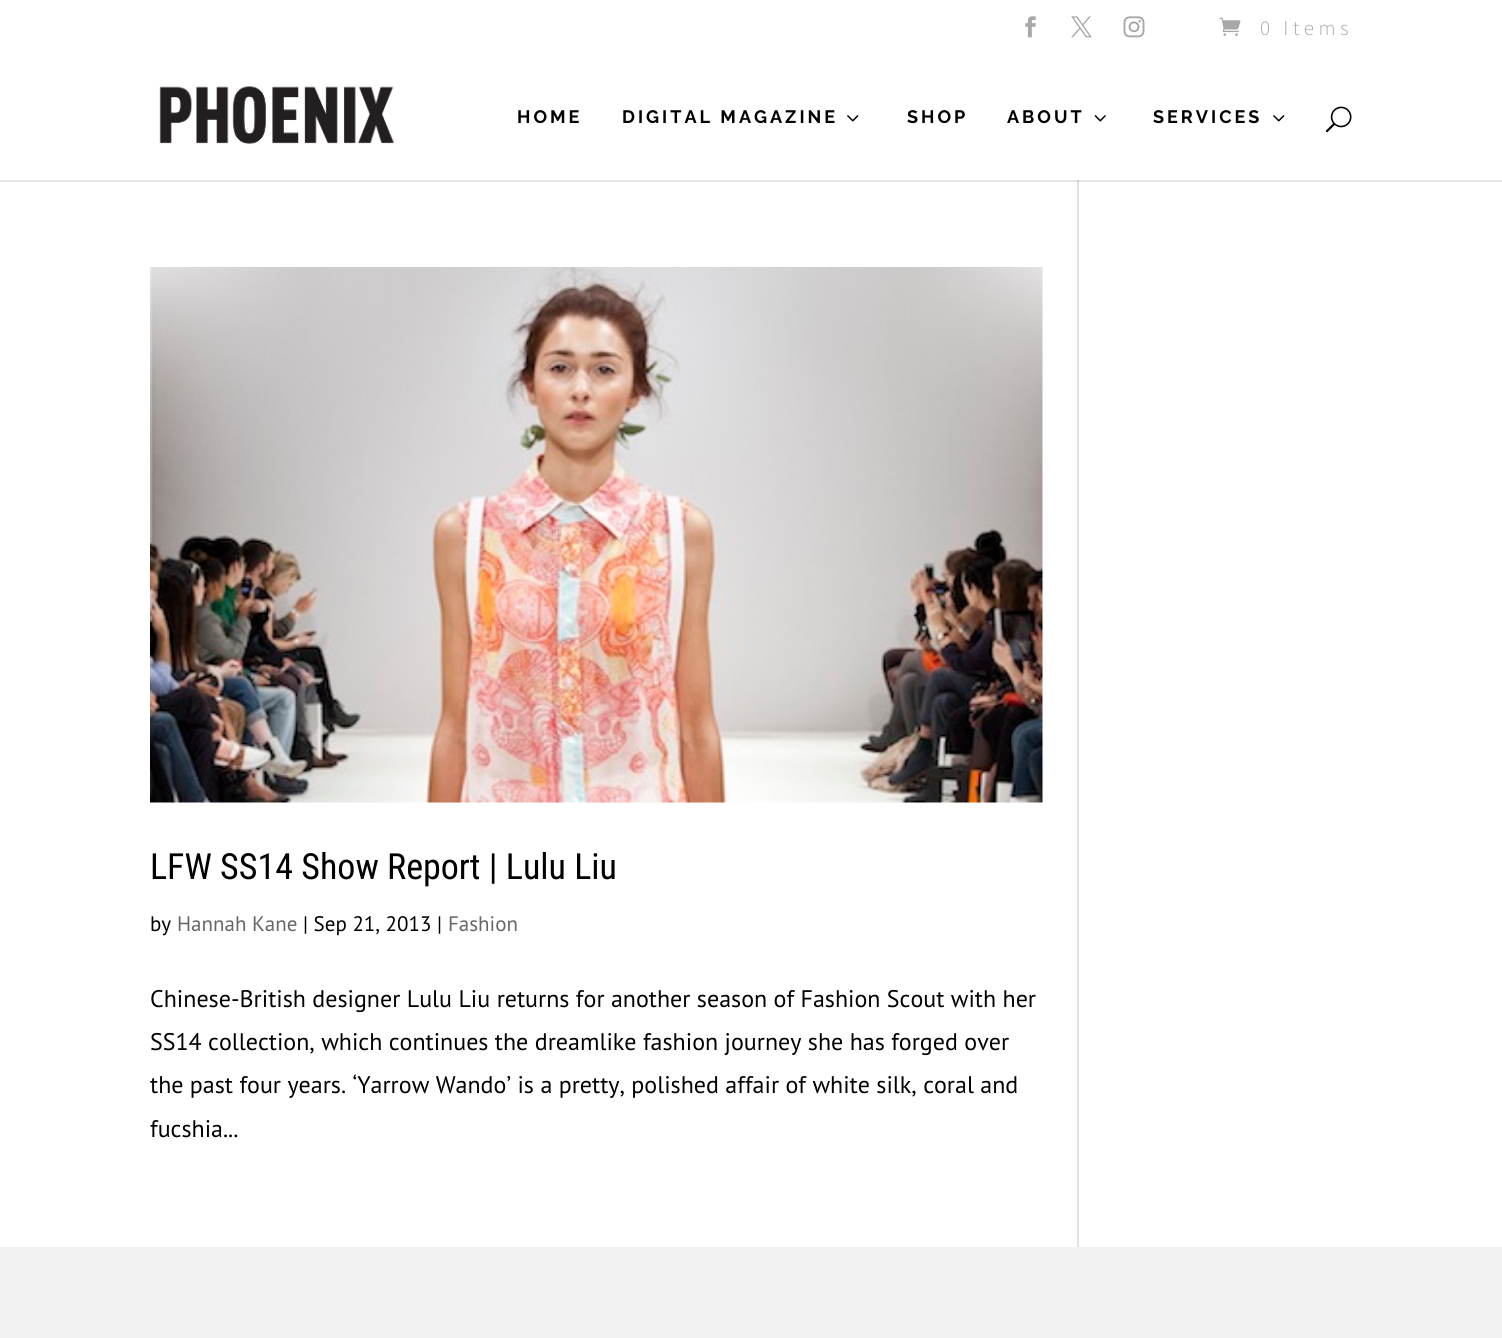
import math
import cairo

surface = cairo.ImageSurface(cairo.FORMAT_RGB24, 1502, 1338)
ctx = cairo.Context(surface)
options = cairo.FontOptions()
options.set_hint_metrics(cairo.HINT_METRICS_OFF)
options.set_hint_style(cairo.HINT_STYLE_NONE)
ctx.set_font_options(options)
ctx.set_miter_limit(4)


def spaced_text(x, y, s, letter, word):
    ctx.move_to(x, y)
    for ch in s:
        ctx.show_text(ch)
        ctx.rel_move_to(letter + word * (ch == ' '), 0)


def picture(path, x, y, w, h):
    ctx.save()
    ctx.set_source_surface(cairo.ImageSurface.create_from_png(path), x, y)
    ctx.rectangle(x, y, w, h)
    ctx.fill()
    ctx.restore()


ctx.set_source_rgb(1, 1, 1)
ctx.paint()
ctx.set_source_rgb(0.902, 0.902, 0.902)
ctx.rectangle(0, 180, 1502, 2)
ctx.fill()
picture("img1.png", 1025, 16, 11, 22)
picture("img2.png", 1071, 16, 21, 22)
picture("img3.png", 1123, 16, 22, 22)
picture("img4.png", 1219, 17, 22, 19)
ctx.select_font_face("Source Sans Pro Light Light")
ctx.set_font_size(21)
ctx.set_source_rgb(0.659, 0.659, 0.659)
spaced_text(1260, 35, "0 Items", 4.5, 0)
picture("img5.png", 159, 86, 236, 58)
ctx.select_font_face("Raleway", cairo.FONT_SLANT_NORMAL, cairo.FONT_WEIGHT_BOLD)
ctx.set_font_size(18)
ctx.set_source_rgb(0, 0, 0)
spaced_text(517, 123, "HOME", 3, 0)
spaced_text(622, 123, "DIGITAL MAGAZINE", 3, 0)
picture("img6.png", 847, 115, 12, 7)
spaced_text(907, 123, "SHOP", 3, 0)
spaced_text(1007, 123, "ABOUT", 3, 0)
picture("img7.png", 1094, 115, 12, 7)
spaced_text(1153, 123, "SERVICES", 3, 0)
picture("img6.png", 1273, 115, 12, 7)
picture("img8.png", 1325, 106, 27, 27)
picture("img9.png", 150, 267, 893, 536)
ctx.select_font_face("Roboto Condensed")
ctx.set_font_size(36)
ctx.move_to(150, 879)
ctx.show_text("LFW SS14 Show Report | Lulu Liu")
ctx.select_font_face("PT Sans")
ctx.set_font_size(21)
ctx.move_to(150, 931)
ctx.show_text("by")
ctx.set_source_rgb(0.4, 0.4, 0.4)
ctx.move_to(177, 931)
ctx.show_text("Hannah Kane")
ctx.set_source_rgb(0, 0, 0)
ctx.move_to(303, 931)
ctx.show_text("| Sep 21, 2013 |")
ctx.set_source_rgb(0.4, 0.4, 0.4)
ctx.move_to(448, 931)
ctx.show_text("Fashion")
ctx.set_font_size(24)
ctx.set_source_rgb(0, 0, 0)
ctx.move_to(150, 1007)
ctx.show_text("Chinese-British designer Lulu Liu returns for another season of Fashion Scout with her")
ctx.move_to(150, 1050)
ctx.show_text("SS14 collection, which continues the dreamlike fashion journey she has forged over")
ctx.move_to(150, 1093)
ctx.show_text("the past four years. ‘Yarrow Wando’ is a pretty, polished affair of white silk, coral and")
ctx.move_to(150, 1137)
ctx.show_text("fucshia...")
ctx.set_source_rgb(0.886, 0.886, 0.886)
ctx.rectangle(1077, 180, 2, 1067)
ctx.fill()
ctx.set_source_rgb(0.796, 0.796, 0.796)
ctx.rectangle(1077, 180, 2, 2)
ctx.fill()
ctx.set_source_rgb(0.949, 0.949, 0.949)
ctx.rectangle(0, 1247, 1502, 91)
ctx.fill()
surface.write_to_png("page.png")
